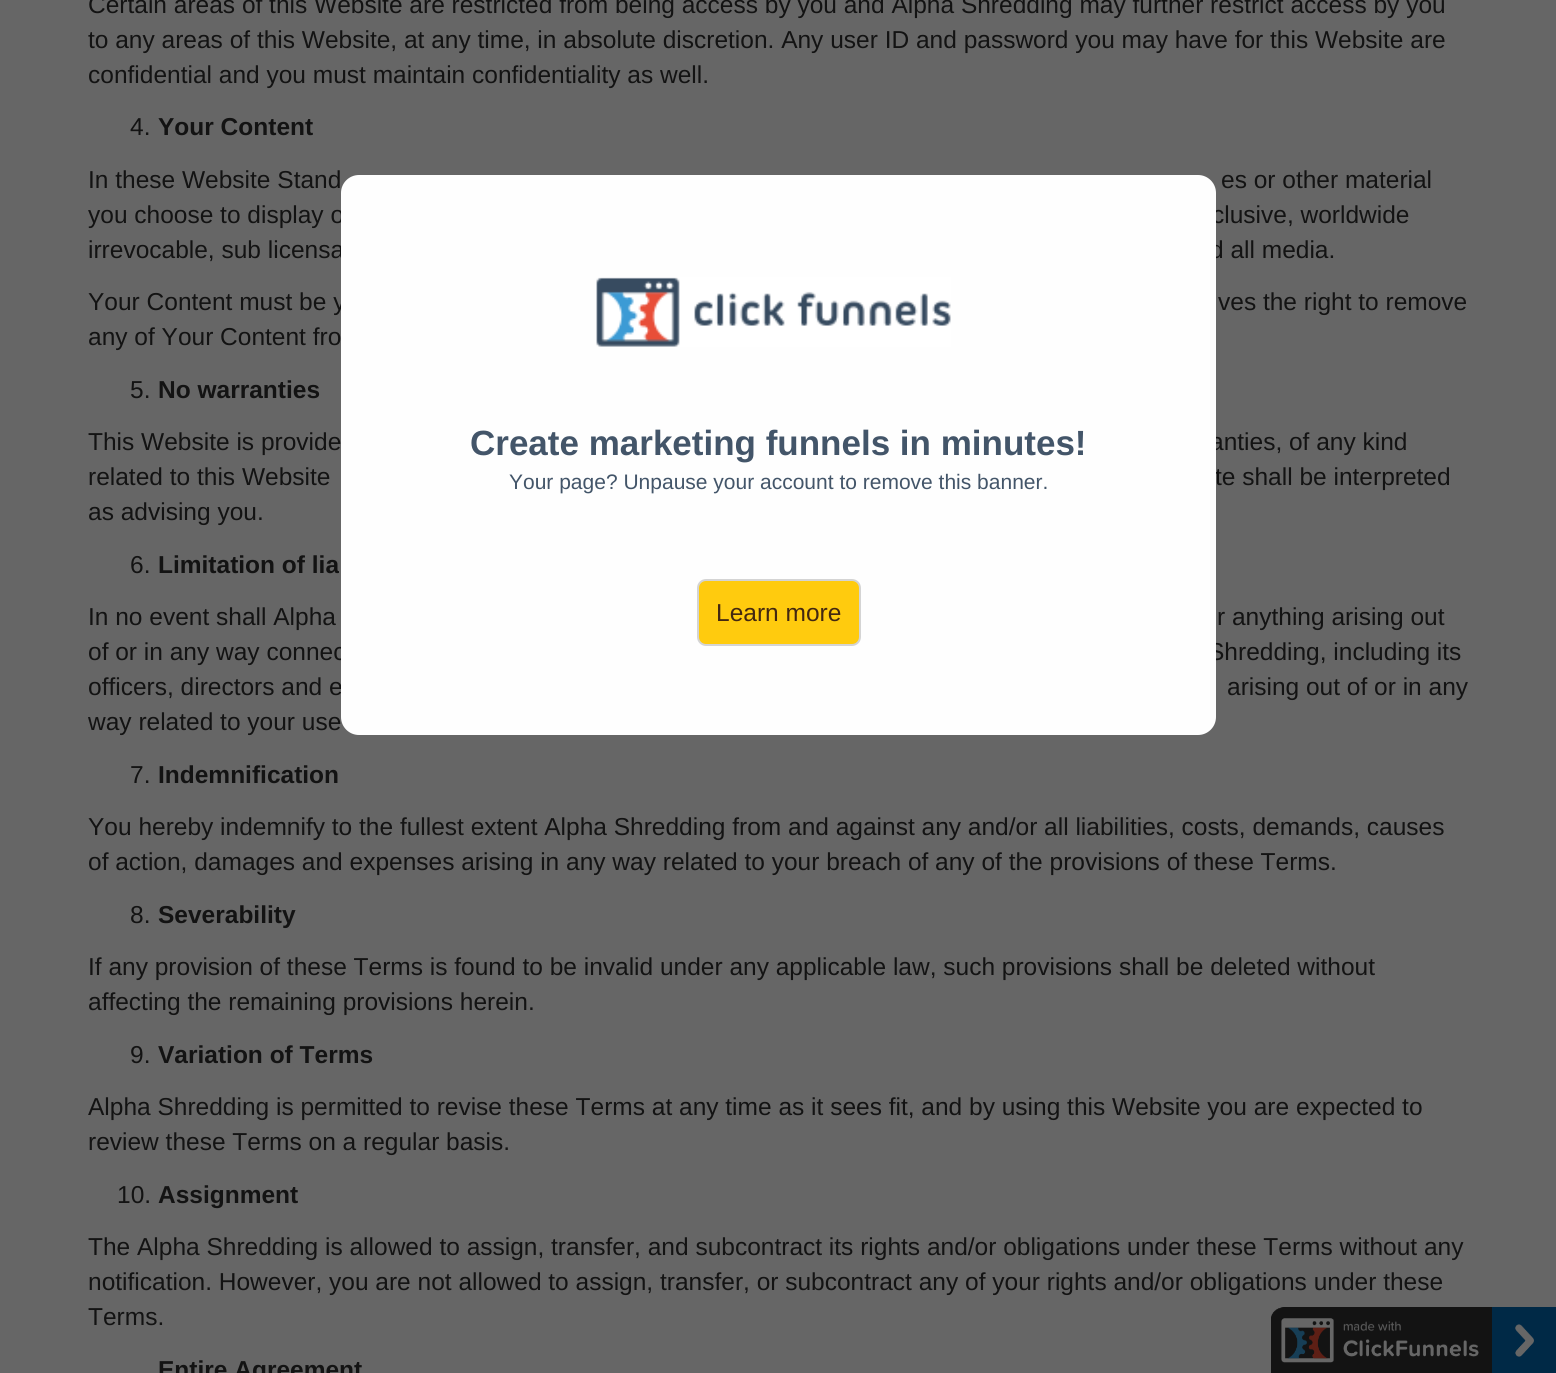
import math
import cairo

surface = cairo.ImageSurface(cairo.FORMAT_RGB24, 1556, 1373)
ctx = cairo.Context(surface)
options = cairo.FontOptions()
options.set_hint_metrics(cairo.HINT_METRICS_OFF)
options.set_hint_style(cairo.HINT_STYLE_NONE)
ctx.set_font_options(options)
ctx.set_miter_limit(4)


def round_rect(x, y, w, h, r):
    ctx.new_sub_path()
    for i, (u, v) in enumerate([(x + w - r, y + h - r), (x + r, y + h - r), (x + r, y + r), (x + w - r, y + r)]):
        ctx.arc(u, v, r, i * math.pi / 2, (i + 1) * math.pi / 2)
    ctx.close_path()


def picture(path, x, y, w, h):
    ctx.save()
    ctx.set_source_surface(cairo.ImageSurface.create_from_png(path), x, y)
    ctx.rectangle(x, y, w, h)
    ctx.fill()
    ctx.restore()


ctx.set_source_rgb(0.4, 0.4, 0.4)
ctx.paint()
ctx.select_font_face("Liberation Sans")
ctx.set_font_size(24.5)
ctx.set_source_rgb(0.075, 0.075, 0.075)
ctx.move_to(88, 13)
ctx.show_text("Certain areas of this Website are restricted from being access by you and Alpha Shredding may further restrict access by you")
ctx.move_to(88, 48)
ctx.show_text("to any areas of this Website, at any time, in absolute discretion. Any user ID and password you may have for this Website are")
ctx.move_to(88, 83)
ctx.show_text("confidential and you must maintain confidentiality as well.")
ctx.move_to(130, 135)
ctx.show_text("4.")
ctx.select_font_face("Liberation Sans", cairo.FONT_SLANT_NORMAL, cairo.FONT_WEIGHT_BOLD)
ctx.move_to(158, 135)
ctx.show_text("Your Content")
ctx.select_font_face("Liberation Sans")
ctx.move_to(88, 188)
ctx.show_text("In these Website Stand")
ctx.move_to(1221, 188)
ctx.show_text("es or other material")
ctx.move_to(88, 223)
ctx.show_text("you choose to display o")
ctx.move_to(1212, 223)
ctx.show_text("clusive, worldwide")
ctx.move_to(88, 258)
ctx.show_text("irrevocable, sub licensa")
ctx.move_to(1210, 258)
ctx.show_text("d all media.")
ctx.move_to(88, 310)
ctx.show_text("Your Content must be y")
ctx.move_to(1218, 310)
ctx.show_text("ves the right to remove")
ctx.move_to(88, 345)
ctx.show_text("any of Your Content fro")
ctx.move_to(130, 398)
ctx.show_text("5.")
ctx.select_font_face("Liberation Sans", cairo.FONT_SLANT_NORMAL, cairo.FONT_WEIGHT_BOLD)
ctx.move_to(158, 398)
ctx.show_text("No warranties")
ctx.select_font_face("Liberation Sans")
ctx.move_to(88, 450)
ctx.show_text("This Website is provide")
ctx.move_to(1210, 450)
ctx.show_text("anties, of any kind")
ctx.move_to(88, 485)
ctx.show_text("related to this Website")
ctx.move_to(1215, 485)
ctx.show_text("te shall be interpreted")
ctx.move_to(88, 520)
ctx.show_text("as advising you.")
ctx.move_to(130, 573)
ctx.show_text("6.")
ctx.select_font_face("Liberation Sans", cairo.FONT_SLANT_NORMAL, cairo.FONT_WEIGHT_BOLD)
ctx.move_to(158, 573)
ctx.show_text("Limitation of lia")
ctx.select_font_face("Liberation Sans")
ctx.move_to(88, 625)
ctx.show_text("In no event shall Alpha")
ctx.move_to(1217, 625)
ctx.show_text("r anything arising out")
ctx.move_to(88, 660)
ctx.show_text("of or in any way connec")
ctx.move_to(1208, 660)
ctx.show_text("Shredding, including its")
ctx.move_to(88, 695)
ctx.show_text("officers, directors and e")
ctx.move_to(1227, 695)
ctx.show_text("arising out of or in any")
ctx.move_to(88, 730)
ctx.show_text("way related to your use")
ctx.move_to(130, 783)
ctx.show_text("7.")
ctx.select_font_face("Liberation Sans", cairo.FONT_SLANT_NORMAL, cairo.FONT_WEIGHT_BOLD)
ctx.move_to(158, 783)
ctx.show_text("Indemnification")
ctx.select_font_face("Liberation Sans")
ctx.move_to(88, 835)
ctx.show_text("You hereby indemnify to the fullest extent Alpha Shredding from and against any and/or all liabilities, costs, demands, causes")
ctx.move_to(88, 870)
ctx.show_text("of action, damages and expenses arising in any way related to your breach of any of the provisions of these Terms.")
ctx.move_to(130, 923)
ctx.show_text("8.")
ctx.select_font_face("Liberation Sans", cairo.FONT_SLANT_NORMAL, cairo.FONT_WEIGHT_BOLD)
ctx.move_to(158, 923)
ctx.show_text("Severability")
ctx.select_font_face("Liberation Sans")
ctx.move_to(88, 975)
ctx.show_text("If any provision of these Terms is found to be invalid under any applicable law, such provisions shall be deleted without")
ctx.move_to(88, 1010)
ctx.show_text("affecting the remaining provisions herein.")
ctx.move_to(130, 1063)
ctx.show_text("9.")
ctx.select_font_face("Liberation Sans", cairo.FONT_SLANT_NORMAL, cairo.FONT_WEIGHT_BOLD)
ctx.move_to(158, 1063)
ctx.show_text("Variation of Terms")
ctx.select_font_face("Liberation Sans")
ctx.move_to(88, 1115)
ctx.show_text("Alpha Shredding is permitted to revise these Terms at any time as it sees fit, and by using this Website you are expected to")
ctx.move_to(88, 1150)
ctx.show_text("review these Terms on a regular basis.")
ctx.move_to(117, 1203)
ctx.show_text("10.")
ctx.select_font_face("Liberation Sans", cairo.FONT_SLANT_NORMAL, cairo.FONT_WEIGHT_BOLD)
ctx.move_to(158, 1203)
ctx.show_text("Assignment")
ctx.select_font_face("Liberation Sans")
ctx.move_to(88, 1255)
ctx.show_text("The Alpha Shredding is allowed to assign, transfer, and subcontract its rights and/or obligations under these Terms without any")
ctx.move_to(88, 1290)
ctx.show_text("notification. However, you are not allowed to assign, transfer, or subcontract any of your rights and/or obligations under these")
ctx.move_to(88, 1325)
ctx.show_text("Terms.")
ctx.select_font_face("Liberation Sans", cairo.FONT_SLANT_NORMAL, cairo.FONT_WEIGHT_BOLD)
ctx.move_to(158, 1378)
ctx.show_text("Entire Agreement")
ctx.set_source_rgb(0.996, 0.996, 0.996)
round_rect(341, 175, 875, 560, 18)
ctx.fill()
picture("img1.png", 596, 277, 355, 70)
ctx.set_font_size(35)
ctx.set_source_rgb(0.263, 0.333, 0.412)
ctx.move_to(470, 455)
ctx.show_text("Create marketing funnels in minutes!")
ctx.select_font_face("Liberation Sans")
ctx.set_font_size(21)
ctx.move_to(509, 489)
ctx.show_text("Your page? Unpause your account to remove this banner.")
ctx.set_source_rgb(1, 0.796, 0.055)
round_rect(698, 580, 162, 65, 8)
ctx.fill_preserve()
ctx.set_source_rgb(0.831, 0.831, 0.831)
ctx.stroke()
ctx.set_font_size(24.5)
ctx.set_source_rgb(0.263, 0.157, 0.067)
ctx.move_to(716, 621)
ctx.show_text("Learn more")
picture("img2.png", 1271, 1307, 285, 66)
surface.write_to_png("page.png")
